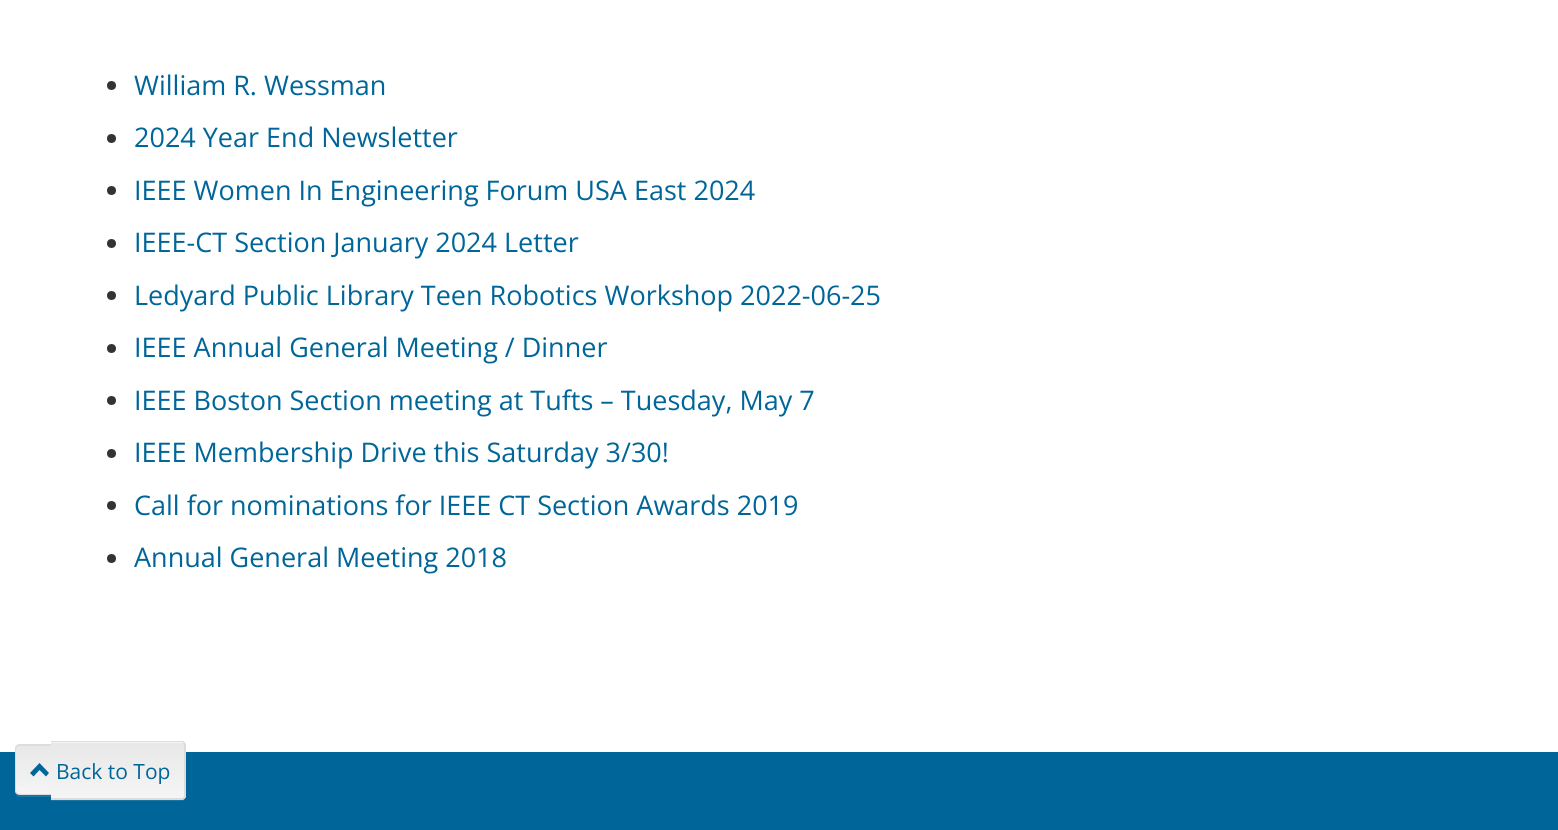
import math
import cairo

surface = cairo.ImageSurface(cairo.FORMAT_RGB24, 1558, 830)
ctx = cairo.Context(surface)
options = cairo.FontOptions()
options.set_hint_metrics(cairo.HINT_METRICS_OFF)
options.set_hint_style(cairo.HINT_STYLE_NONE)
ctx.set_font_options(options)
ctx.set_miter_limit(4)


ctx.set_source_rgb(1, 1, 1)
ctx.paint()
ctx.set_source_rgb(0.2, 0.2, 0.2)
ctx.arc(111.5, 85.5, 4.5, 0, 2 * math.pi)
ctx.fill()
ctx.select_font_face("Open Sans")
ctx.set_font_size(27)
ctx.set_source_rgb(0, 0.4, 0.6)
ctx.move_to(134, 95)
ctx.show_text("William R. Wessman")
ctx.set_source_rgb(0.2, 0.2, 0.2)
ctx.new_path()
ctx.arc(111.5, 138.5, 4.5, 0, 2 * math.pi)
ctx.fill()
ctx.set_source_rgb(0, 0.4, 0.6)
ctx.move_to(134, 147)
ctx.show_text("2024 Year End Newsletter")
ctx.set_source_rgb(0.2, 0.2, 0.2)
ctx.new_path()
ctx.arc(111.5, 190.5, 4.5, 0, 2 * math.pi)
ctx.fill()
ctx.set_source_rgb(0, 0.4, 0.6)
ctx.move_to(134, 200)
ctx.show_text("IEEE Women In Engineering Forum USA East 2024")
ctx.set_source_rgb(0.2, 0.2, 0.2)
ctx.new_path()
ctx.arc(111.5, 243.5, 4.5, 0, 2 * math.pi)
ctx.fill()
ctx.set_source_rgb(0, 0.4, 0.6)
ctx.move_to(134, 252)
ctx.show_text("IEEE-CT Section January 2024 Letter")
ctx.set_source_rgb(0.2, 0.2, 0.2)
ctx.new_path()
ctx.arc(111.5, 295.5, 4.5, 0, 2 * math.pi)
ctx.fill()
ctx.set_source_rgb(0, 0.4, 0.6)
ctx.move_to(134, 305)
ctx.show_text("Ledyard Public Library Teen Robotics Workshop 2022-06-25")
ctx.set_source_rgb(0.2, 0.2, 0.2)
ctx.new_path()
ctx.arc(111.5, 348.5, 4.5, 0, 2 * math.pi)
ctx.fill()
ctx.set_source_rgb(0, 0.4, 0.6)
ctx.move_to(134, 357)
ctx.show_text("IEEE Annual General Meeting / Dinner")
ctx.set_source_rgb(0.2, 0.2, 0.2)
ctx.new_path()
ctx.arc(111.5, 400.5, 4.5, 0, 2 * math.pi)
ctx.fill()
ctx.set_source_rgb(0, 0.4, 0.6)
ctx.move_to(134, 410)
ctx.show_text("IEEE Boston Section meeting at Tufts – Tuesday, May 7")
ctx.set_source_rgb(0.2, 0.2, 0.2)
ctx.new_path()
ctx.arc(111.5, 453.5, 4.5, 0, 2 * math.pi)
ctx.fill()
ctx.set_source_rgb(0, 0.4, 0.6)
ctx.move_to(134, 462)
ctx.show_text("IEEE Membership Drive this Saturday 3/30!")
ctx.set_source_rgb(0.2, 0.2, 0.2)
ctx.new_path()
ctx.arc(111.5, 505.5, 4.5, 0, 2 * math.pi)
ctx.fill()
ctx.set_source_rgb(0, 0.4, 0.6)
ctx.move_to(134, 515)
ctx.show_text("Call for nominations for IEEE CT Section Awards 2019")
ctx.set_source_rgb(0.2, 0.2, 0.2)
ctx.new_path()
ctx.arc(111.5, 558.5, 4.5, 0, 2 * math.pi)
ctx.fill()
ctx.set_source_rgb(0, 0.4, 0.6)
ctx.move_to(134, 567)
ctx.show_text("Annual General Meeting 2018")
ctx.rectangle(0, 752, 1558, 78)
ctx.fill()
ctx.set_source_rgb(0.102, 0.459, 0.639)
ctx.new_path()
ctx.move_to(15, 790.5)
ctx.line_to(15, 792)
ctx.curve_to(15, 795, 17, 797, 20, 797)
ctx.line_to(51, 797)
ctx.line_to(51, 795)
ctx.line_to(19.5, 795)
ctx.curve_to(17, 795, 15, 793, 15, 790.5)
ctx.close_path()
ctx.fill()
ctx.save()
ctx.new_path()
ctx.move_to(20, 744)
ctx.line_to(51, 744)
ctx.line_to(51, 795)
ctx.line_to(20, 795)
ctx.curve_to(17, 795, 15, 793, 15, 790)
ctx.line_to(15, 749)
ctx.curve_to(15, 746, 17, 744, 20, 744)
ctx.close_path()
ctx.clip()
gradient = cairo.LinearGradient(34, 746, 34, 794)
gradient.add_color_stop_rgba(0, 0.91, 0.91, 0.91, 1)
gradient.add_color_stop_rgba(1, 0.961, 0.961, 0.961, 1)
ctx.set_source(gradient)
ctx.rectangle(15, 746, 36, 48)
ctx.fill()
ctx.restore()
ctx.set_source_rgb(0.863, 0.863, 0.863)
ctx.set_fill_rule(cairo.FILL_RULE_EVEN_ODD)
ctx.new_path()
ctx.move_to(20, 744)
ctx.line_to(51, 744)
ctx.line_to(51, 795)
ctx.line_to(20, 795)
ctx.curve_to(17, 795, 15, 793, 15, 790)
ctx.line_to(15, 748)
ctx.curve_to(15, 746, 17, 744, 20, 744)
ctx.close_path()
ctx.move_to(20, 746)
ctx.line_to(51, 746)
ctx.line_to(51, 794)
ctx.line_to(20, 794)
ctx.curve_to(18, 794, 16, 792, 16, 790)
ctx.line_to(16, 748)
ctx.curve_to(16, 747, 18, 746, 20, 746)
ctx.close_path()
ctx.fill()
ctx.set_source_rgb(0.102, 0.459, 0.639)
ctx.set_fill_rule(cairo.FILL_RULE_WINDING)
ctx.new_path()
ctx.move_to(51, 800)
ctx.line_to(51, 801)
ctx.line_to(181, 801)
ctx.curve_to(184, 801, 186, 799, 186, 796)
ctx.line_to(186, 795)
ctx.curve_to(186, 797, 184, 800, 182, 800)
ctx.close_path()
ctx.fill()
ctx.set_source_rgb(0.961, 0.961, 0.961)
ctx.new_path()
ctx.move_to(51, 741)
ctx.line_to(181, 741)
ctx.curve_to(184, 741, 186, 743, 186, 746)
ctx.line_to(186, 795)
ctx.curve_to(186, 798, 184, 800, 181, 800)
ctx.line_to(51, 800)
ctx.close_path()
ctx.fill()
ctx.save()
ctx.new_path()
ctx.move_to(51, 741)
ctx.line_to(181, 741)
ctx.curve_to(184, 741, 186, 743, 186, 746)
ctx.line_to(186, 795)
ctx.curve_to(186, 798, 184, 800, 181, 800)
ctx.line_to(51, 800)
ctx.close_path()
ctx.clip()
gradient = cairo.LinearGradient(118, 743, 118, 798)
gradient.add_color_stop_rgba(0, 0.91, 0.91, 0.91, 1)
gradient.add_color_stop_rgba(1, 0.961, 0.961, 0.961, 1)
ctx.set_source(gradient)
ctx.rectangle(51, 743, 135, 55)
ctx.fill()
ctx.restore()
ctx.set_source_rgb(0.863, 0.863, 0.863)
ctx.set_fill_rule(cairo.FILL_RULE_EVEN_ODD)
ctx.new_path()
ctx.move_to(51, 741)
ctx.line_to(182, 741)
ctx.curve_to(184, 741, 186, 743, 186, 746)
ctx.line_to(186, 795)
ctx.curve_to(186, 797, 184, 800, 182, 800)
ctx.line_to(51, 800)
ctx.close_path()
ctx.move_to(51, 742)
ctx.line_to(182, 742)
ctx.curve_to(183, 742, 184, 744, 184, 746)
ctx.line_to(184, 795)
ctx.curve_to(184, 797, 183, 798, 182, 798)
ctx.line_to(51, 798)
ctx.close_path()
ctx.fill()
ctx.set_source_rgb(0, 0.4, 0.6)
ctx.set_fill_rule(cairo.FILL_RULE_WINDING)
ctx.new_path()
ctx.move_to(49, 773)
ctx.line_to(46, 776.5)
ctx.line_to(39.5, 770)
ctx.line_to(33.5, 776.5)
ctx.line_to(30, 773)
ctx.line_to(39.5, 763)
ctx.close_path()
ctx.fill()
ctx.set_font_size(21)
ctx.move_to(56, 779)
ctx.show_text("Back to Top")
surface.write_to_png("page.png")
